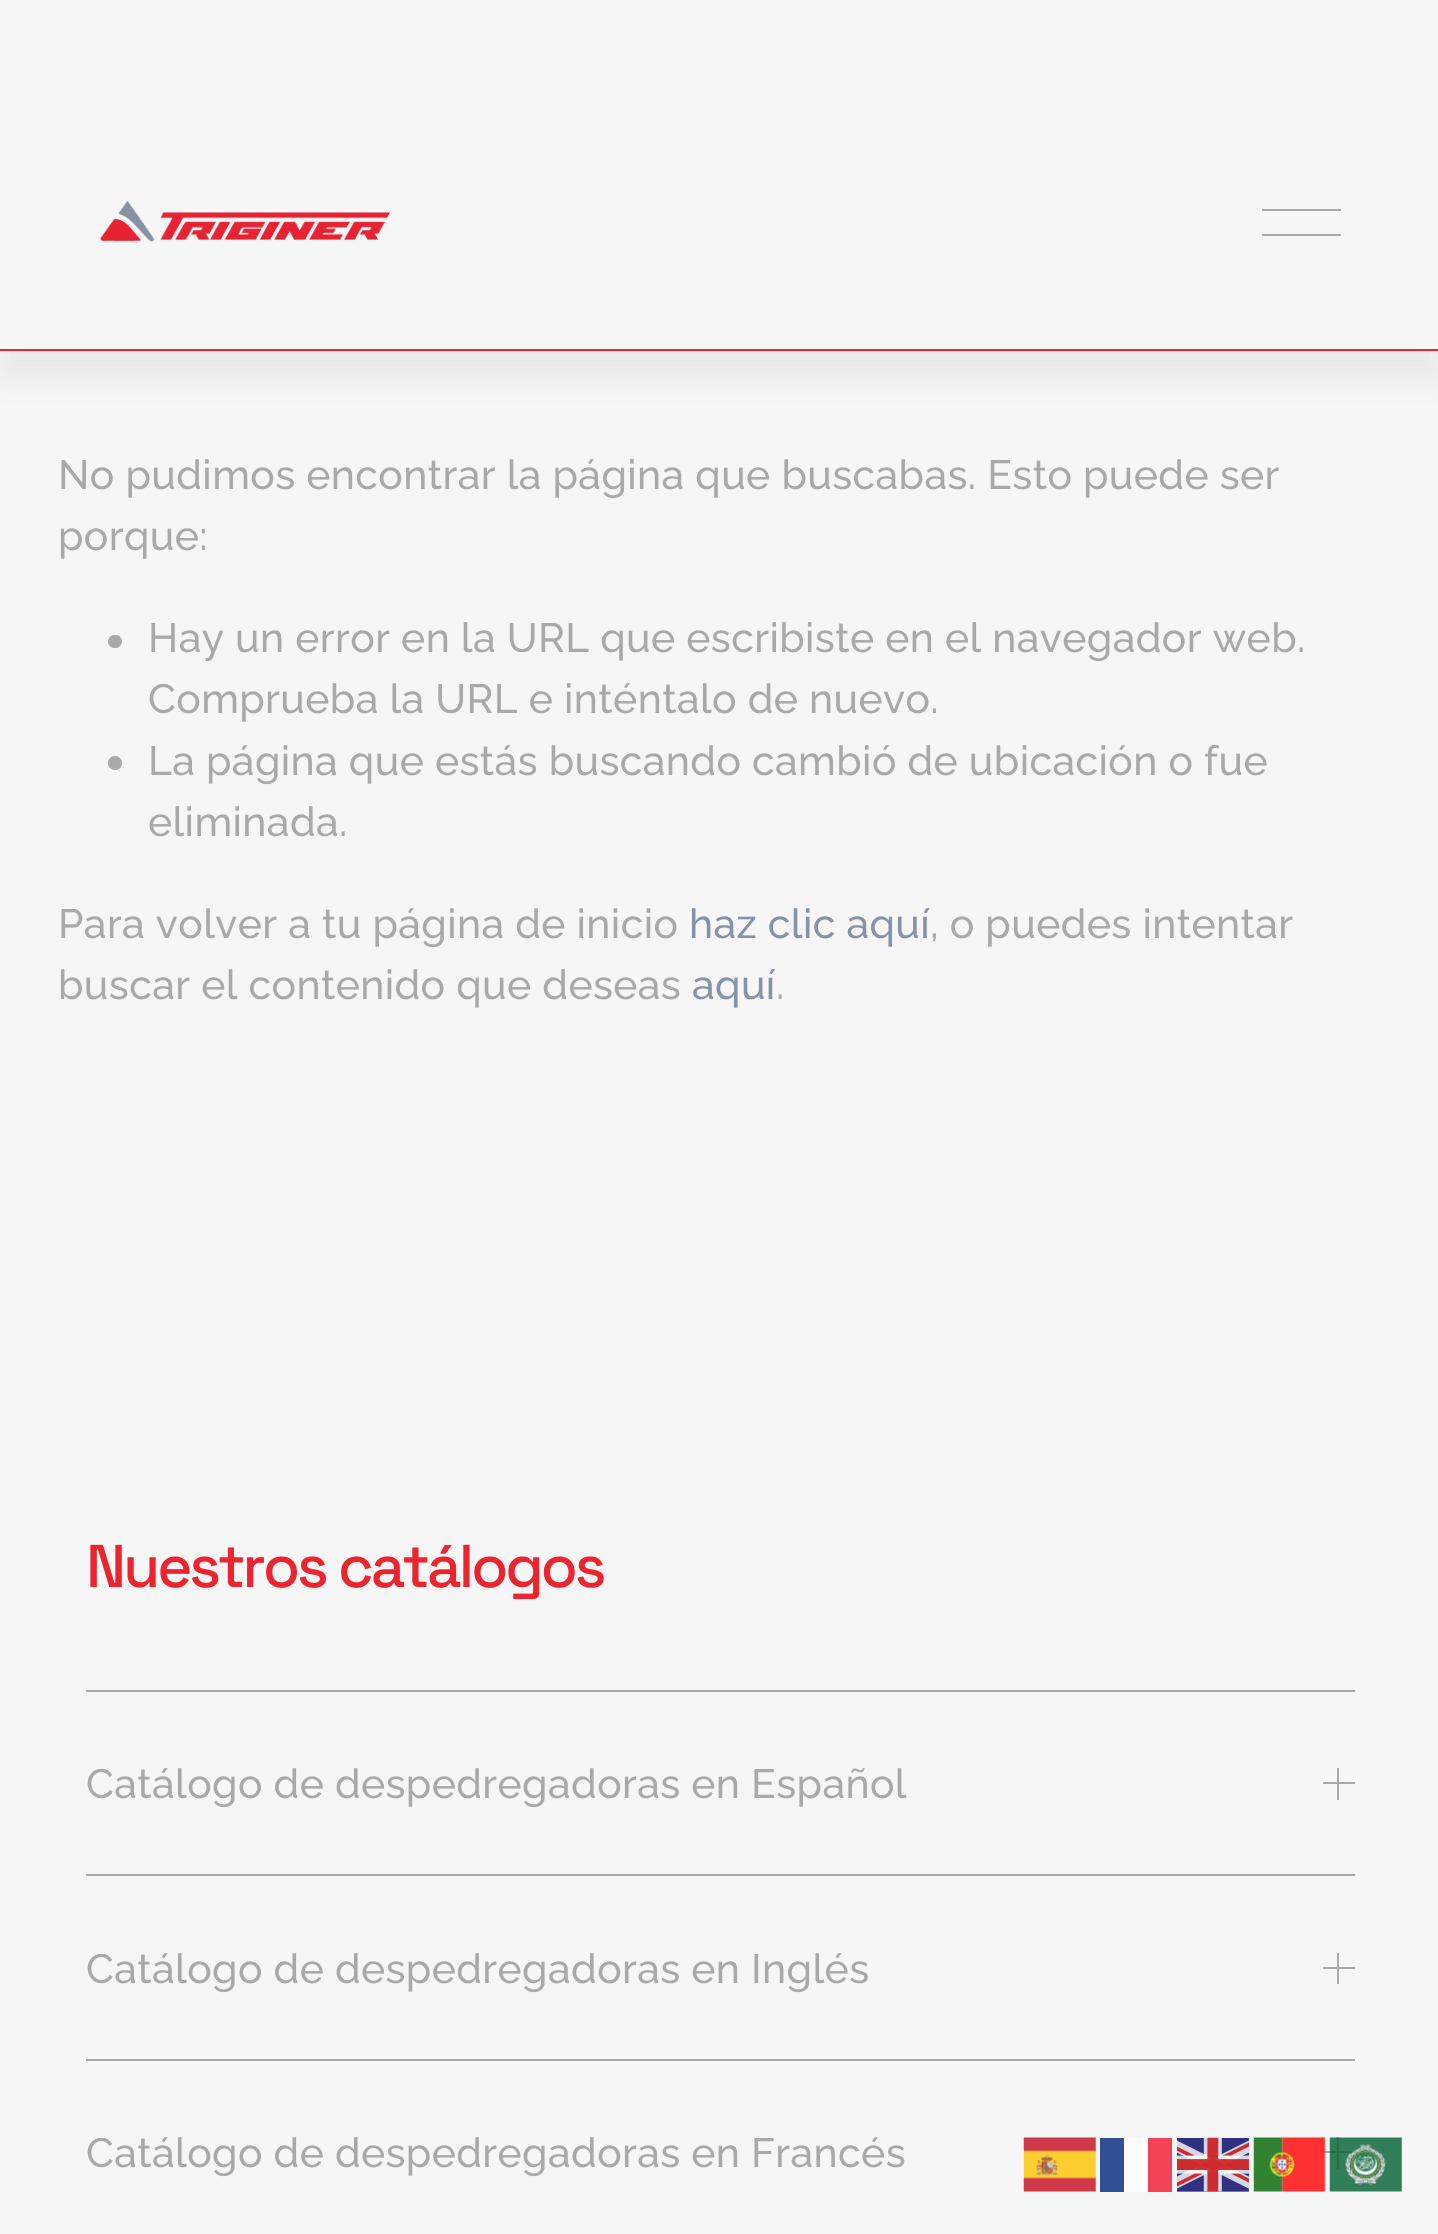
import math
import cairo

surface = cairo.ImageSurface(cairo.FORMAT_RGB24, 1438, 2234)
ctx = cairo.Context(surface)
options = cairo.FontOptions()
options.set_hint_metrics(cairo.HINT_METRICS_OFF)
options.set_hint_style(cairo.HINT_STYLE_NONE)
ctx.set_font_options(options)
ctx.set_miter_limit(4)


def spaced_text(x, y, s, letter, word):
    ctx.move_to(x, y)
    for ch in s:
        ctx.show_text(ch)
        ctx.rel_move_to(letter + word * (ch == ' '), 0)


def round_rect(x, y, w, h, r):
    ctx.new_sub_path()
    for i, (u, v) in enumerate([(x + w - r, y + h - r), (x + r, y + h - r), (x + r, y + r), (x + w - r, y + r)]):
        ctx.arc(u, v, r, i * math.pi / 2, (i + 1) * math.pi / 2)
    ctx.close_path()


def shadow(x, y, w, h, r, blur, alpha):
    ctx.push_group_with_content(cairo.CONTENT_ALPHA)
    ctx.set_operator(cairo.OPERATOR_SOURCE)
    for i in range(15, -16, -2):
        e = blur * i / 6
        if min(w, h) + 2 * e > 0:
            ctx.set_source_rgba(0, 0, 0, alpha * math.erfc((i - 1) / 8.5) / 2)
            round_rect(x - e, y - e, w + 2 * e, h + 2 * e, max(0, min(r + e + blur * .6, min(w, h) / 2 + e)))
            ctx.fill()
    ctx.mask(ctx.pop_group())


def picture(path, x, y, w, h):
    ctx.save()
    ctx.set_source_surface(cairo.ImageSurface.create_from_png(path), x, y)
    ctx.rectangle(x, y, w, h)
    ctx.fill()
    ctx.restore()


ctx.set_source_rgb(0.961, 0.961, 0.961)
ctx.paint()
ctx.save()
ctx.rectangle(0, 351, 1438, 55)
ctx.clip()
ctx.set_source_rgb(0.914, 0.914, 0.914)
shadow(0, 122, 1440, 256, 0, 13.5, 1)
ctx.restore()
picture("img1.png", 100, 201, 291, 41)
ctx.set_source_rgb(0.663, 0.663, 0.663)
ctx.rectangle(1262, 209, 79, 2)
ctx.fill()
ctx.rectangle(1262, 234, 79, 2)
ctx.fill()
ctx.set_source_rgb(0.922, 0.141, 0.184)
ctx.rectangle(0, 349, 1438, 2)
ctx.fill()
ctx.select_font_face("Raleway Medium")
ctx.set_font_size(40.85)
ctx.set_source_rgb(0.663, 0.663, 0.663)
spaced_text(58, 489, "No pudimos encontrar la página que buscabas. Esto puede ser", 0.4, 0)
spaced_text(58, 550, "porque:", 0.4, 0)
round_rect(108, 635, 14, 13, 6.5)
ctx.fill()
spaced_text(148, 652, "Hay un error en la URL que escribiste en el navegador web.", 0.4, 0)
spaced_text(148, 713, "Comprueba la URL e inténtalo de nuevo.", 0.4, 0)
ctx.new_path()
ctx.arc(115, 763, 7, 0, 2 * math.pi)
ctx.fill()
spaced_text(148, 775, "La página que estás buscando cambió de ubicación o fue", 0.4, 0)
spaced_text(148, 836, "eliminada.", 0.4, 0)
spaced_text(58, 938, "Para volver a tu página de inicio", 0.4, 0)
ctx.set_source_rgb(0.525, 0.573, 0.651)
spaced_text(689, 938, "haz clic aquí", 0.4, 0)
ctx.set_source_rgb(0.663, 0.663, 0.663)
spaced_text(930, 938, ", o puedes intentar", 0.4, 0)
spaced_text(58, 999, "buscar el contenido que deseas", 0.4, 0)
ctx.set_source_rgb(0.525, 0.573, 0.651)
spaced_text(692, 999, "aquí", 0.4, 0)
ctx.set_source_rgb(0.663, 0.663, 0.663)
spaced_text(776, 999, ".", 0.4, 0)
ctx.select_font_face("Space Grotesk Medium")
ctx.set_font_size(60.25)
ctx.set_source_rgb(0.922, 0.141, 0.184)
spaced_text(86, 1587, "Nuestros catálogos", -3, 0)
ctx.set_source_rgb(0.663, 0.663, 0.663)
ctx.rectangle(86, 1690, 1269, 2)
ctx.fill()
ctx.select_font_face("Raleway Medium")
ctx.set_font_size(40.85)
spaced_text(86, 1798, "Catálogo de despedregadoras en Español", 0.4, 0)
ctx.rectangle(1323, 1782, 32, 2)
ctx.fill()
ctx.rectangle(1337, 1768, 2, 32)
ctx.fill()
ctx.rectangle(86, 1874, 1269, 2)
ctx.fill()
spaced_text(86, 1983, "Catálogo de despedregadoras en Inglés", 0.4, 0)
ctx.rectangle(1323, 1967, 32, 2)
ctx.fill()
ctx.rectangle(1337, 1953, 2, 31)
ctx.fill()
ctx.rectangle(86, 2059, 1269, 2)
ctx.fill()
spaced_text(86, 2167, "Catálogo de despedregadoras en Francés", 0.4, 0)
ctx.rectangle(1323, 2151, 32, 2)
ctx.fill()
ctx.rectangle(1337, 2137, 2, 32)
ctx.fill()
picture("img2.png", 1023, 2137, 73, 55)
ctx.set_source_rgb(0.192, 0.31, 0.592)
ctx.rectangle(1100, 2138, 24, 54)
ctx.fill()
ctx.set_source_rgb(0.992, 0.992, 0.992)
ctx.rectangle(1124, 2138, 24, 54)
ctx.fill()
ctx.set_source_rgb(0.953, 0.267, 0.341)
ctx.rectangle(1148, 2138, 24, 54)
ctx.fill()
picture("img3.png", 1177, 2137, 72, 55)
picture("img4.png", 1253, 2137, 73, 55)
picture("img5.png", 1329, 2137, 73, 55)
surface.write_to_png("page.png")
